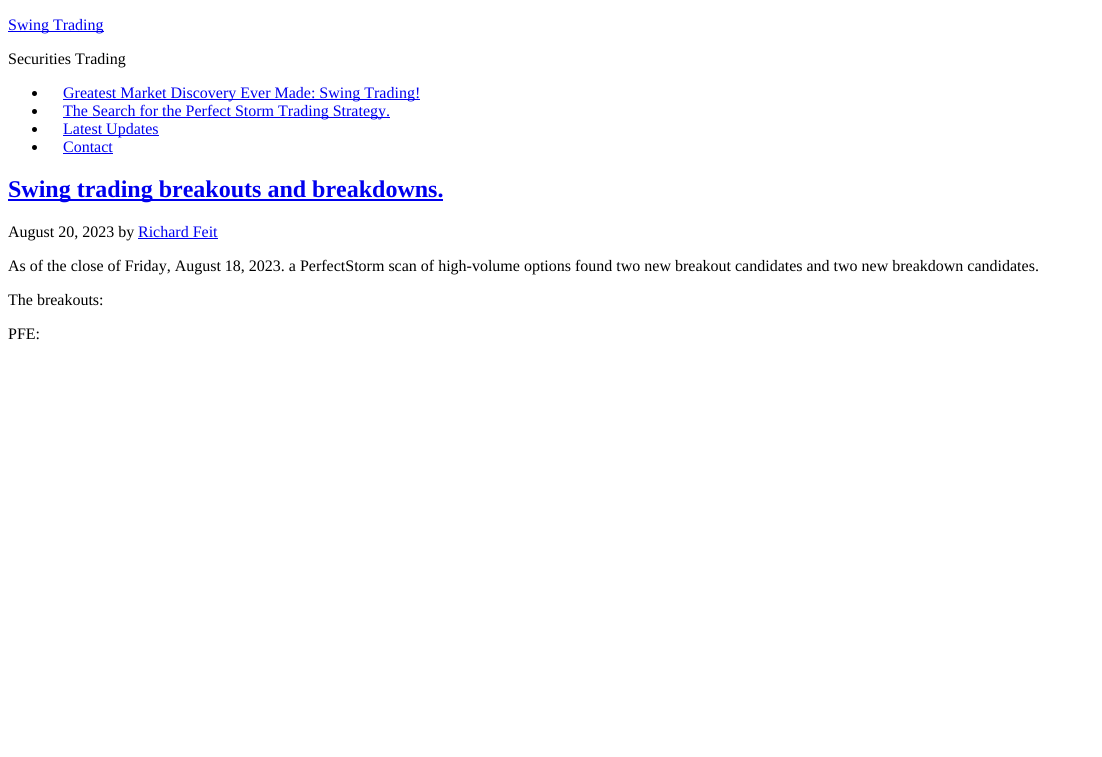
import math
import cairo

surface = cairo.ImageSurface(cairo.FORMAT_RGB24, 1102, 757)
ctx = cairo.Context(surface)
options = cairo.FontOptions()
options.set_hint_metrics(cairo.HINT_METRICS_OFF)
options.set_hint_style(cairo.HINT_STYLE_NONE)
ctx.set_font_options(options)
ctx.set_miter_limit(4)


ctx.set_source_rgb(1, 1, 1)
ctx.paint()
ctx.set_source_rgb(0, 0, 0.933)
ctx.rectangle(8, 31, 96, 1)
ctx.fill()
ctx.select_font_face("Liberation Serif")
ctx.set_font_size(16)
ctx.move_to(8, 30)
ctx.show_text("Swing Trading")
ctx.set_source_rgb(0, 0, 0)
ctx.move_to(8, 64)
ctx.show_text("Securities Trading")
ctx.new_path()
ctx.arc(34.5, 93.5, 2.5, 0, 2 * math.pi)
ctx.fill()
ctx.set_source_rgb(0, 0, 0.933)
ctx.rectangle(63, 99, 357, 1)
ctx.fill()
ctx.move_to(63, 98)
ctx.show_text("Greatest Market Discovery Ever Made: Swing Trading!")
ctx.set_source_rgb(0, 0, 0)
ctx.new_path()
ctx.arc(34.5, 111.5, 2.5, 0, 2 * math.pi)
ctx.fill()
ctx.set_source_rgb(0, 0, 0.933)
ctx.rectangle(63, 117, 327, 1)
ctx.fill()
ctx.move_to(63, 116)
ctx.show_text("The Search for the Perfect Storm Trading Strategy.")
ctx.set_source_rgb(0, 0, 0)
ctx.new_path()
ctx.arc(34.5, 129.5, 2.5, 0, 2 * math.pi)
ctx.fill()
ctx.set_source_rgb(0, 0, 0.933)
ctx.rectangle(63, 135, 96, 1)
ctx.fill()
ctx.move_to(63, 134)
ctx.show_text("Latest Updates")
ctx.set_source_rgb(0, 0, 0)
ctx.new_path()
ctx.arc(34.5, 147.5, 2.5, 0, 2 * math.pi)
ctx.fill()
ctx.set_source_rgb(0, 0, 0.933)
ctx.move_to(63, 152)
ctx.show_text("Contact")
ctx.rectangle(63, 153, 50, 1)
ctx.fill()
ctx.rectangle(8, 199, 435, 2)
ctx.fill()
ctx.select_font_face("Liberation Serif", cairo.FONT_SLANT_NORMAL, cairo.FONT_WEIGHT_BOLD)
ctx.set_font_size(24)
ctx.move_to(8, 197)
ctx.show_text("Swing trading breakouts and breakdowns.")
ctx.select_font_face("Liberation Serif")
ctx.set_font_size(16)
ctx.set_source_rgb(0, 0, 0)
ctx.move_to(8, 237)
ctx.show_text("August 20, 2023 by")
ctx.set_source_rgb(0, 0, 0.933)
ctx.move_to(138, 237)
ctx.show_text("Richard Feit")
ctx.rectangle(138, 238, 80, 1)
ctx.fill()
ctx.set_source_rgb(0, 0, 0)
ctx.move_to(8, 271)
ctx.show_text("As of the close of Friday, August 18, 2023. a PerfectStorm scan of high-volume options found two new breakout candidates and two new breakdown candidates.")
ctx.move_to(8, 305)
ctx.show_text("The breakouts:")
ctx.move_to(8, 339)
ctx.show_text("PFE:")
surface.write_to_png("page.png")
